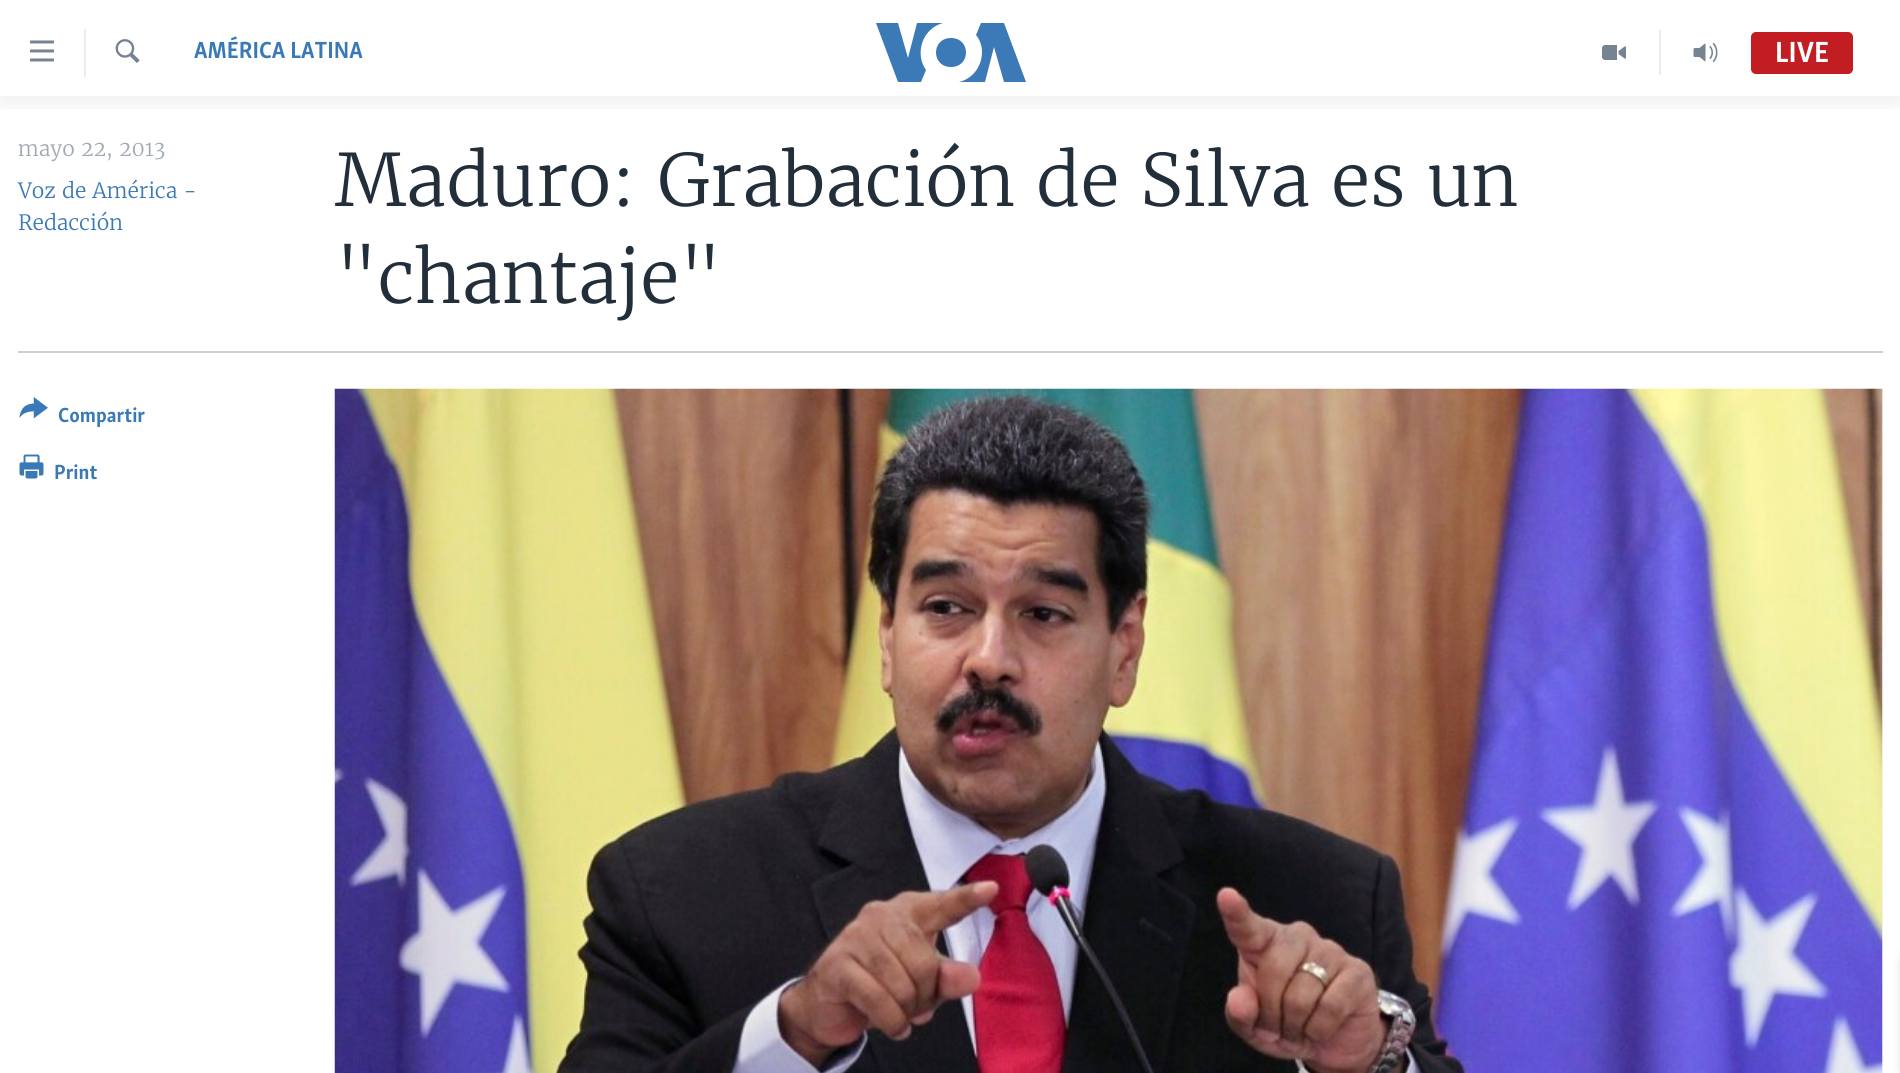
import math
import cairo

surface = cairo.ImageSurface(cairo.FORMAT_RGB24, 1900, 1073)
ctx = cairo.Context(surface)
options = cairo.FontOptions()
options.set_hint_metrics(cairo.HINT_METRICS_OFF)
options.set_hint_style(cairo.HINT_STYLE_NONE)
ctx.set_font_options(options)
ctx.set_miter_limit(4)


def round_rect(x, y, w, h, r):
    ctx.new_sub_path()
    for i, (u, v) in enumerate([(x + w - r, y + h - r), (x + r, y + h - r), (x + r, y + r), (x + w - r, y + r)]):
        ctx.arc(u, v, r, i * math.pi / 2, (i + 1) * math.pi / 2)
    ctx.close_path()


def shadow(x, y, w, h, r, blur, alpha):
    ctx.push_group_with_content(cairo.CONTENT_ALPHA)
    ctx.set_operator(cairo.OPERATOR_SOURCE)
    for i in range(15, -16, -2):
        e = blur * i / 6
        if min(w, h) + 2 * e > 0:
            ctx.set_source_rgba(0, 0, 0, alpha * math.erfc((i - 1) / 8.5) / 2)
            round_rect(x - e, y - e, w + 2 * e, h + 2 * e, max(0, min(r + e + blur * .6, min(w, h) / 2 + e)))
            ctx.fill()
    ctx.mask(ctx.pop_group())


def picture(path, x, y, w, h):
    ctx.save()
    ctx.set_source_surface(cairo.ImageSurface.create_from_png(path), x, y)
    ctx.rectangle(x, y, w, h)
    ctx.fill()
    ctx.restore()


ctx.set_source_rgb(1, 1, 1)
ctx.paint()
ctx.save()
ctx.rectangle(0, 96, 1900, 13)
ctx.clip()
ctx.set_source_rgb(0, 0, 0)
shadow(0, 0, 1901, 96, 0, 15, 0.1)
ctx.restore()
picture("img1.png", 30, 40, 24, 22)
ctx.set_source_rgb(0.922, 0.922, 0.922)
ctx.rectangle(84, 29, 2, 48)
ctx.fill()
picture("img2.png", 115, 39, 25, 24)
ctx.select_font_face("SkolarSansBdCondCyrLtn", cairo.FONT_SLANT_NORMAL, cairo.FONT_WEIGHT_BOLD)
ctx.set_font_size(24)
ctx.set_source_rgb(0.227, 0.475, 0.718)
ctx.move_to(194, 58)
ctx.show_text("AMÉRICA LATINA")
ctx.set_source_rgb(0.231, 0.475, 0.718)
ctx.new_path()
ctx.move_to(926, 70)
ctx.line_to(921, 82)
ctx.line_to(898, 82)
ctx.line_to(876, 23)
ctx.line_to(898, 23)
ctx.line_to(908, 58)
ctx.line_to(917, 23)
ctx.line_to(943, 23)
ctx.curve_to(923, 28, 914, 53, 926, 70)
ctx.close_path()
ctx.move_to(951, 38)
ctx.curve_to(931, 38, 931, 67, 951, 67)
ctx.curve_to(971, 67, 971, 38, 951, 38)
ctx.close_path()
ctx.move_to(982, 52)
ctx.curve_to(982, 67, 972, 79, 959, 82)
ctx.line_to(985, 82)
ctx.line_to(994, 47)
ctx.line_to(1004, 82)
ctx.line_to(1026, 82)
ctx.line_to(1004, 23)
ctx.line_to(981, 23)
ctx.line_to(976, 35)
ctx.curve_to(980, 40, 982, 46, 982, 52)
ctx.close_path()
ctx.fill()
ctx.set_source_rgb(0.922, 0.922, 0.922)
ctx.rectangle(1659, 30, 2, 45)
ctx.fill()
picture("img3.png", 1602, 45, 24, 15)
picture("img4.png", 1693, 42, 25, 21)
ctx.set_source_rgb(0.757, 0.114, 0.133)
round_rect(1751, 32, 102, 42, 5)
ctx.fill()
ctx.set_font_size(30)
ctx.set_source_rgb(1, 1, 1)
ctx.move_to(1775, 62)
ctx.show_text("LIVE")
ctx.select_font_face("Merriweather Light")
ctx.set_font_size(21)
ctx.set_source_rgb(0.631, 0.667, 0.706)
ctx.move_to(18, 156)
ctx.show_text("mayo 22, 2013")
ctx.set_source_rgb(0.227, 0.475, 0.718)
ctx.move_to(18, 198)
ctx.show_text("Voz de América -")
ctx.move_to(18, 230)
ctx.show_text("Redacción")
ctx.set_font_size(72)
ctx.set_source_rgb(0.133, 0.184, 0.227)
ctx.move_to(335, 206)
ctx.show_text("Maduro: Grabación de Silva es un")
ctx.move_to(335, 303)
ctx.show_text("\"chantaje\"")
ctx.set_source_rgb(0.796, 0.82, 0.839)
ctx.rectangle(18, 351, 1865, 2)
ctx.fill()
picture("img5.png", 19, 397, 29, 22)
ctx.select_font_face("SkolarSansBdCondCyrLtn", cairo.FONT_SLANT_NORMAL, cairo.FONT_WEIGHT_BOLD)
ctx.set_font_size(21)
ctx.set_source_rgb(0.227, 0.475, 0.718)
ctx.move_to(58, 422)
ctx.show_text("Compartir")
picture("img6.png", 19, 454, 25, 25)
ctx.move_to(54, 479)
ctx.show_text("Print")
ctx.set_source_rgb(0.965, 0.969, 0.973)
ctx.rectangle(1882, 389, 1, 684)
ctx.fill()
picture("img7.png", 334, 388, 1549, 685)
ctx.set_source_rgb(0, 0, 0)
shadow(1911, 957, 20, 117, 8, 7.5, 0.85)
surface.write_to_png("page.png")
